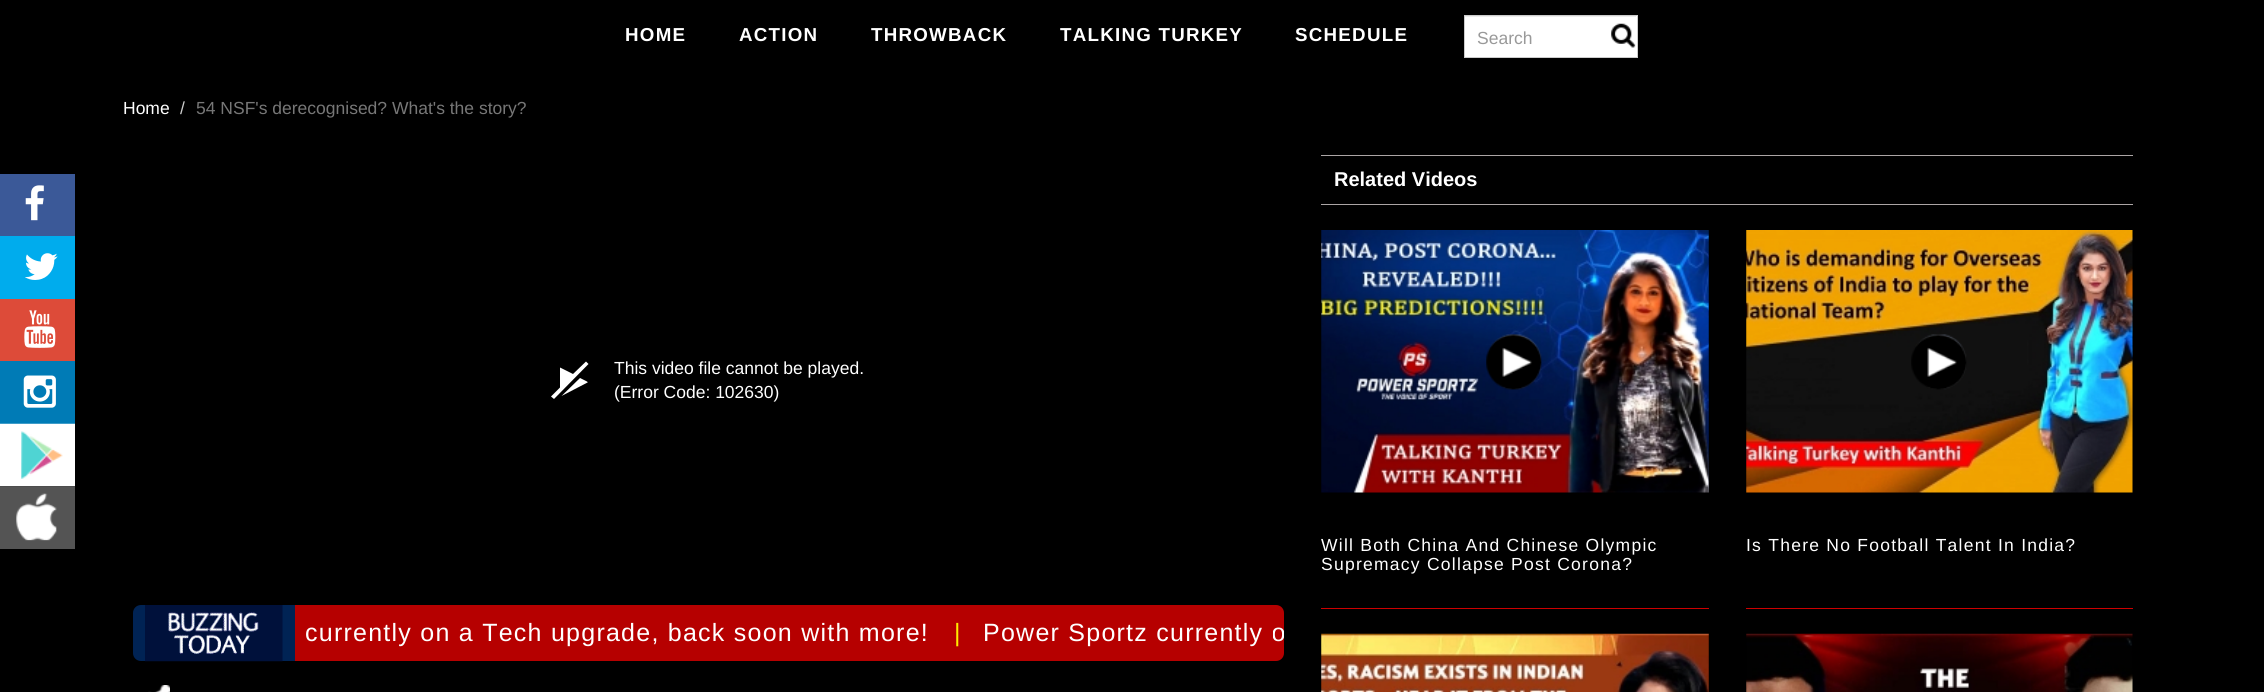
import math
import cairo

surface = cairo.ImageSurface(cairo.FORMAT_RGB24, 2264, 692)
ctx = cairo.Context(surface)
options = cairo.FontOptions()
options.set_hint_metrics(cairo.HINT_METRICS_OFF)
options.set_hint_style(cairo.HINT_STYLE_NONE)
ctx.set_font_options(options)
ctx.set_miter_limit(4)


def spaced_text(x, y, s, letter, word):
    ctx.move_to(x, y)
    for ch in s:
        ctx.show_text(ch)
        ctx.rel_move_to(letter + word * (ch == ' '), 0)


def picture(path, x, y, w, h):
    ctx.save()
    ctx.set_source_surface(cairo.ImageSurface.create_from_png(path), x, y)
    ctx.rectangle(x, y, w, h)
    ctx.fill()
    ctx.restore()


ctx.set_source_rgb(0, 0, 0)
ctx.paint()
ctx.set_source_rgb(0.231, 0.349, 0.596)
ctx.rectangle(0, 174, 75, 62)
ctx.fill()
picture("img1.png", 25, 185, 19, 36)
ctx.set_source_rgb(0, 0.675, 0.929)
ctx.rectangle(0, 236, 75, 63)
ctx.fill()
picture("img2.png", 25, 253, 33, 27)
ctx.set_source_rgb(0.867, 0.294, 0.224)
ctx.rectangle(0, 299, 75, 62)
ctx.fill()
picture("img3.png", 24, 310, 32, 38)
ctx.set_source_rgb(0, 0.482, 0.714)
ctx.rectangle(0, 361, 75, 63)
ctx.fill()
picture("img4.png", 23, 375, 33, 33)
picture("img5.png", 0, 423, 75, 64)
picture("img6.png", 0, 486, 75, 63)
ctx.select_font_face("Liberation Sans", cairo.FONT_SLANT_NORMAL, cairo.FONT_WEIGHT_BOLD)
ctx.set_font_size(18.75)
ctx.set_source_rgb(1, 1, 1)
spaced_text(625, 41, "HOME", 1.25, 0)
spaced_text(739, 41, "ACTION", 1.25, 0)
spaced_text(871, 41, "THROWBACK", 1.25, 0)
spaced_text(1060, 41, "TALKING TURKEY", 1.25, 0)
spaced_text(1295, 41, "SCHEDULE", 1.25, 0)
ctx.rectangle(1465, 16, 172, 41)
ctx.fill()
picture("img7.png", 1611, 23, 25, 25)
ctx.set_source_rgb(0.925, 0.925, 0.925)
ctx.rectangle(1465, 16, 171, 1)
ctx.fill()
ctx.rectangle(1464.5, 15.5, 173, 42)
ctx.set_source_rgb(0.8, 0.8, 0.8)
ctx.set_line_width(1)
ctx.stroke()
ctx.select_font_face("Liberation Sans")
ctx.set_font_size(17.5)
ctx.set_source_rgb(0.6, 0.6, 0.6)
ctx.move_to(1477, 44)
ctx.show_text("Search")
ctx.set_source_rgb(1, 1, 1)
ctx.move_to(123, 114)
ctx.show_text("Home")
ctx.set_source_rgb(0.8, 0.8, 0.8)
ctx.move_to(180, 114)
ctx.show_text("/")
ctx.set_source_rgb(0.467, 0.467, 0.467)
ctx.move_to(196, 114)
ctx.show_text("54 NSF's derecognised? What's the story?")
ctx.set_source_rgb(1, 1, 1)
ctx.new_path()
ctx.move_to(587.5, 382.5)
ctx.line_to(561.5, 396)
ctx.line_to(580, 378)
ctx.curve_to(587, 381.5, 588.5, 382, 587.5, 382.5)
ctx.close_path()
ctx.move_to(586, 361.5)
ctx.line_to(573, 374)
ctx.line_to(560, 367.5)
ctx.line_to(560, 387.5)
ctx.line_to(551, 396.5)
ctx.line_to(554, 399)
ctx.line_to(588.5, 364)
ctx.close_path()
ctx.fill()
ctx.move_to(614, 374)
ctx.show_text("This video file cannot be played.")
ctx.move_to(614, 398)
ctx.show_text("(Error Code: 102630)")
ctx.set_source_rgb(0, 0.137, 0.329)
ctx.new_path()
ctx.move_to(141, 605)
ctx.line_to(295, 605)
ctx.line_to(295, 661)
ctx.line_to(141, 661)
ctx.curve_to(136.5, 661, 133, 657.5, 133, 653)
ctx.line_to(133, 613)
ctx.curve_to(133, 608.5, 136.5, 605, 141, 605)
ctx.close_path()
ctx.fill()
picture("img8.png", 145, 605, 138, 57)
ctx.set_source_rgb(0.714, 0, 0)
ctx.new_path()
ctx.move_to(295, 605)
ctx.line_to(1276, 605)
ctx.curve_to(1280.5, 605, 1284, 608.5, 1284, 613)
ctx.line_to(1284, 653)
ctx.curve_to(1284, 657.5, 1280.5, 661, 1276, 661)
ctx.line_to(295, 661)
ctx.close_path()
ctx.fill()
ctx.set_font_size(25)
ctx.set_source_rgb(1, 1, 1)
spaced_text(305, 641, "currently on a Tech upgrade, back soon with more!", 1.25, 0)
ctx.set_source_rgb(1, 0.918, 0)
spaced_text(954, 641, "|", 1.25, 0)
ctx.save()
ctx.rectangle(295, 605, 989, 56)
ctx.clip()
ctx.set_source_rgb(1, 1, 1)
spaced_text(983, 641, "Power Sportz currently o", 1.25, 0)
ctx.restore()
picture("img9.png", 148, 685, 22, 7)
ctx.set_source_rgb(0.671, 0.647, 0.647)
ctx.rectangle(1321, 155, 812, 1)
ctx.fill()
ctx.rectangle(1321, 204, 812, 1)
ctx.fill()
ctx.select_font_face("Liberation Sans", cairo.FONT_SLANT_NORMAL, cairo.FONT_WEIGHT_BOLD)
ctx.set_font_size(20)
ctx.set_source_rgb(1, 1, 1)
ctx.move_to(1334, 186)
ctx.show_text("Related Videos")
picture("img10.png", 1321, 230, 388, 263)
picture("img11.png", 1486, 334, 56, 56)
ctx.set_source_rgb(0.8, 0, 0)
ctx.rectangle(1321, 608, 388, 1)
ctx.fill()
ctx.select_font_face("Liberation Sans")
ctx.set_font_size(17.5)
ctx.set_source_rgb(1, 1, 1)
spaced_text(1321, 551, "Will Both China And Chinese Olympic", 1.25, 0)
spaced_text(1321, 570, "Supremacy Collapse Post Corona?", 1.25, 0)
picture("img12.png", 1746, 230, 387, 263)
picture("img13.png", 1911, 334, 56, 56)
ctx.set_source_rgb(0.8, 0, 0)
ctx.rectangle(1746, 608, 387, 1)
ctx.fill()
ctx.set_source_rgb(1, 1, 1)
spaced_text(1746, 551, "Is There No Football Talent In India?", 1.25, 0)
picture("img14.png", 1321, 633, 388, 59)
picture("img15.png", 1746, 633, 387, 59)
surface.write_to_png("page.png")
